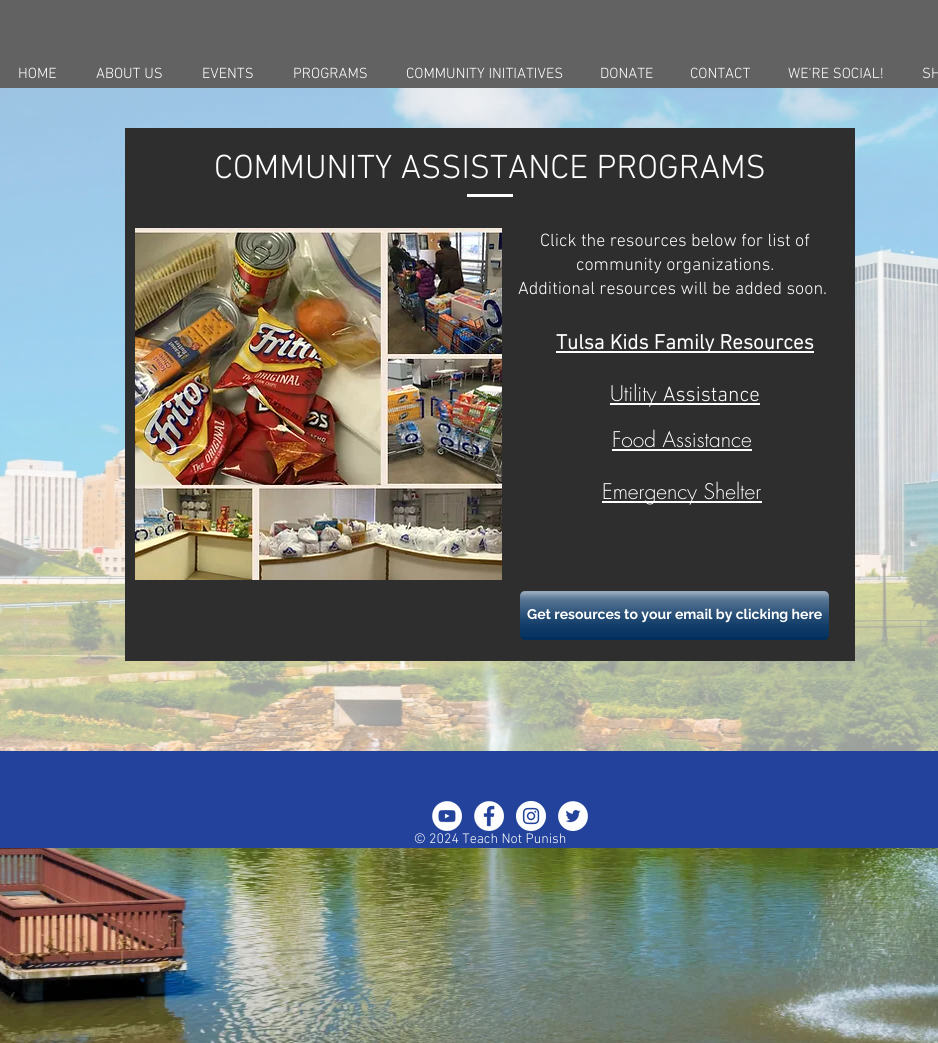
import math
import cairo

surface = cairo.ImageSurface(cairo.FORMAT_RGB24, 938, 1043)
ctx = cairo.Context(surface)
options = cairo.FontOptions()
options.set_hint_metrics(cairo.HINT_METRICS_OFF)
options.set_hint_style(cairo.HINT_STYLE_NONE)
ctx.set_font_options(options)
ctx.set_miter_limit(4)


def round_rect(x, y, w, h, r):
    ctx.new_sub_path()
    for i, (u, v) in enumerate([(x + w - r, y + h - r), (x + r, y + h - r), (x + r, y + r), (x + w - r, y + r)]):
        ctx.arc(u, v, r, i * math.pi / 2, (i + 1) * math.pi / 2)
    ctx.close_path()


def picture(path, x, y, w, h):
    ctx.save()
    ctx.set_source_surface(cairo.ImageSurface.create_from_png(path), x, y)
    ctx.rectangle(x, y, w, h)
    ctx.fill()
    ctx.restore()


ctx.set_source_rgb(1, 1, 1)
ctx.paint()
ctx.set_source_rgb(0.388, 0.384, 0.384)
ctx.rectangle(0, 0, 938, 88)
ctx.fill()
ctx.select_font_face("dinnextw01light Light")
ctx.set_font_size(15)
ctx.set_source_rgb(1, 1, 1)
ctx.move_to(18, 78)
ctx.show_text("HOME")
ctx.move_to(96, 78)
ctx.show_text("ABOUT US")
ctx.move_to(202, 78)
ctx.show_text("EVENTS")
ctx.move_to(293, 78)
ctx.show_text("PROGRAMS")
ctx.move_to(406, 78)
ctx.show_text("COMMUNITY INITIATIVES")
ctx.move_to(600, 78)
ctx.show_text("DONATE")
ctx.move_to(690, 78)
ctx.show_text("CONTACT")
ctx.move_to(788, 78)
ctx.show_text("WE'RE SOCIAL!")
ctx.move_to(922, 78)
ctx.show_text("SH")
picture("img7.png", 0, 88, 938, 955)
ctx.set_source_rgba(1, 1, 1, 0.61)
ctx.rectangle(0, 88, 938, 663)
ctx.fill()
ctx.set_source_rgb(0.184, 0.18, 0.18)
ctx.rectangle(125, 128, 730, 533)
ctx.fill()
ctx.set_font_size(34)
ctx.set_source_rgb(1, 1, 1)
ctx.move_to(214, 178)
ctx.show_text("COMMUNITY ASSISTANCE PROGRAMS")
ctx.rectangle(467, 194, 46, 3)
ctx.fill()
picture("img1.png", 135, 228, 367, 352)
ctx.set_font_size(18)
ctx.move_to(540, 246)
ctx.show_text("Click the resources below for list of")
ctx.move_to(576, 270)
ctx.show_text("community organizations.")
ctx.move_to(518, 294)
ctx.show_text("Additional resources will be added soon.")
ctx.rectangle(556, 351, 258, 2)
ctx.fill()
ctx.select_font_face("dinnextw01light", cairo.FONT_SLANT_NORMAL, cairo.FONT_WEIGHT_BOLD)
ctx.set_font_size(21)
ctx.move_to(556, 349)
ctx.show_text("Tulsa Kids Family Resources")
ctx.rectangle(610, 403, 150, 2)
ctx.fill()
ctx.select_font_face("futura Light")
ctx.move_to(610, 401)
ctx.show_text("Utility")
ctx.select_font_face("dinnextw01light Light")
ctx.move_to(663, 401)
ctx.show_text("Assistance")
ctx.select_font_face("futura Light")
ctx.move_to(612, 447)
ctx.show_text("Food Assistance")
ctx.rectangle(612, 449, 140, 2)
ctx.fill()
ctx.rectangle(602, 501, 160, 2)
ctx.fill()
ctx.move_to(602, 499)
ctx.show_text("Emergency Shelter")
ctx.set_source_rgb(0, 0.18, 0.365)
round_rect(520, 591, 309, 49, 5)
ctx.fill()
picture("img2.png", 520, 591, 309, 46)
ctx.select_font_face("Raleway", cairo.FONT_SLANT_NORMAL, cairo.FONT_WEIGHT_BOLD)
ctx.set_font_size(14)
ctx.set_source_rgb(1, 1, 1)
ctx.move_to(527, 619)
ctx.show_text("Get resources to your email by clicking here")
ctx.set_source_rgb(0.133, 0.259, 0.608)
ctx.rectangle(0, 751, 938, 97)
ctx.fill()
picture("img3.png", 432, 801, 30, 30)
picture("img4.png", 474, 801, 30, 30)
picture("img5.png", 516, 801, 30, 30)
picture("img6.png", 558, 801, 30, 30)
ctx.select_font_face("dinnextw01light Light")
ctx.set_source_rgb(1, 1, 1)
ctx.move_to(414, 843)
ctx.show_text("© 2024 Teach Not Punish")
surface.write_to_png("page.png")
